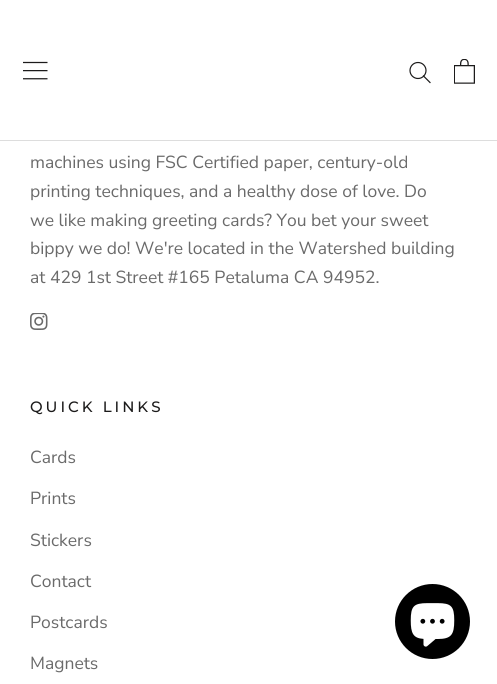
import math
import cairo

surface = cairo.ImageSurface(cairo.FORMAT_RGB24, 497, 684)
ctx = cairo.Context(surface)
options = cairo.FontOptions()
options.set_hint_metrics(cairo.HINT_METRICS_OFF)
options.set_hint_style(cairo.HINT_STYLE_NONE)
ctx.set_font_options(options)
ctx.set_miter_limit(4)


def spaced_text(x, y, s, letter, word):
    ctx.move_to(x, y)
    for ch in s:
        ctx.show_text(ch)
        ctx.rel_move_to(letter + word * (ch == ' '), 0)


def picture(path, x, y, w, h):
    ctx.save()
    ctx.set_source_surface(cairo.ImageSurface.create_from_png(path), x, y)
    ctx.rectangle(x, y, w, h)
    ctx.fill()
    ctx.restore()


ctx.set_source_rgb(1, 1, 1)
ctx.paint()
ctx.set_source_rgb(0.867, 0.867, 0.867)
ctx.rectangle(0, 140, 497, 1)
ctx.fill()
picture("img1.png", 23, 61, 25, 19)
ctx.new_path()
ctx.move_to(430, 82.5)
ctx.line_to(423.5, 76)
ctx.set_source_rgb(0.11, 0.106, 0.106)
ctx.set_line_width(1.2)
ctx.set_line_cap(cairo.LINE_CAP_SQUARE)
ctx.stroke()
ctx.arc(418, 70.5, 8, 0, 2 * math.pi)
ctx.set_line_cap(cairo.LINE_CAP_BUTT)
ctx.stroke()
picture("img2.png", 454, 59, 21, 25)
ctx.select_font_face("Nunito Sans")
ctx.set_font_size(17.5)
ctx.set_source_rgb(0.416, 0.416, 0.416)
ctx.move_to(30, 168)
ctx.show_text("machines using FSC Certified paper, century-old")
ctx.move_to(30, 197)
ctx.show_text("printing techniques, and a healthy dose of love. Do")
ctx.move_to(30, 226)
ctx.show_text("we like making greeting cards? You bet your sweet")
ctx.move_to(30, 254)
ctx.show_text("bippy we do! We're located in the Watershed building")
ctx.move_to(30, 283)
ctx.show_text("at 429 1st Street #165 Petaluma CA 94952.")
picture("img3.png", 30, 313, 18, 17)
ctx.select_font_face("Montserrat Medium")
ctx.set_font_size(15)
ctx.set_source_rgb(0.11, 0.106, 0.106)
spaced_text(30, 412, "QUICK LINKS", 3, 0)
ctx.select_font_face("Nunito Sans")
ctx.set_font_size(17.5)
ctx.set_source_rgb(0.416, 0.416, 0.416)
ctx.move_to(30, 463)
ctx.show_text("Cards")
ctx.move_to(30, 504)
ctx.show_text("Prints")
ctx.move_to(30, 546)
ctx.show_text("Stickers")
ctx.move_to(30, 587)
ctx.show_text("Contact")
ctx.move_to(30, 628)
ctx.show_text("Postcards")
ctx.move_to(30, 669)
ctx.show_text("Magnets")
ctx.set_source_rgb(0, 0, 0)
ctx.new_path()
ctx.arc(432.5, 621.5, 37.5, 0, 2 * math.pi)
ctx.fill()
picture("img4.png", 410, 603, 45, 44)
surface.write_to_png("page.png")
